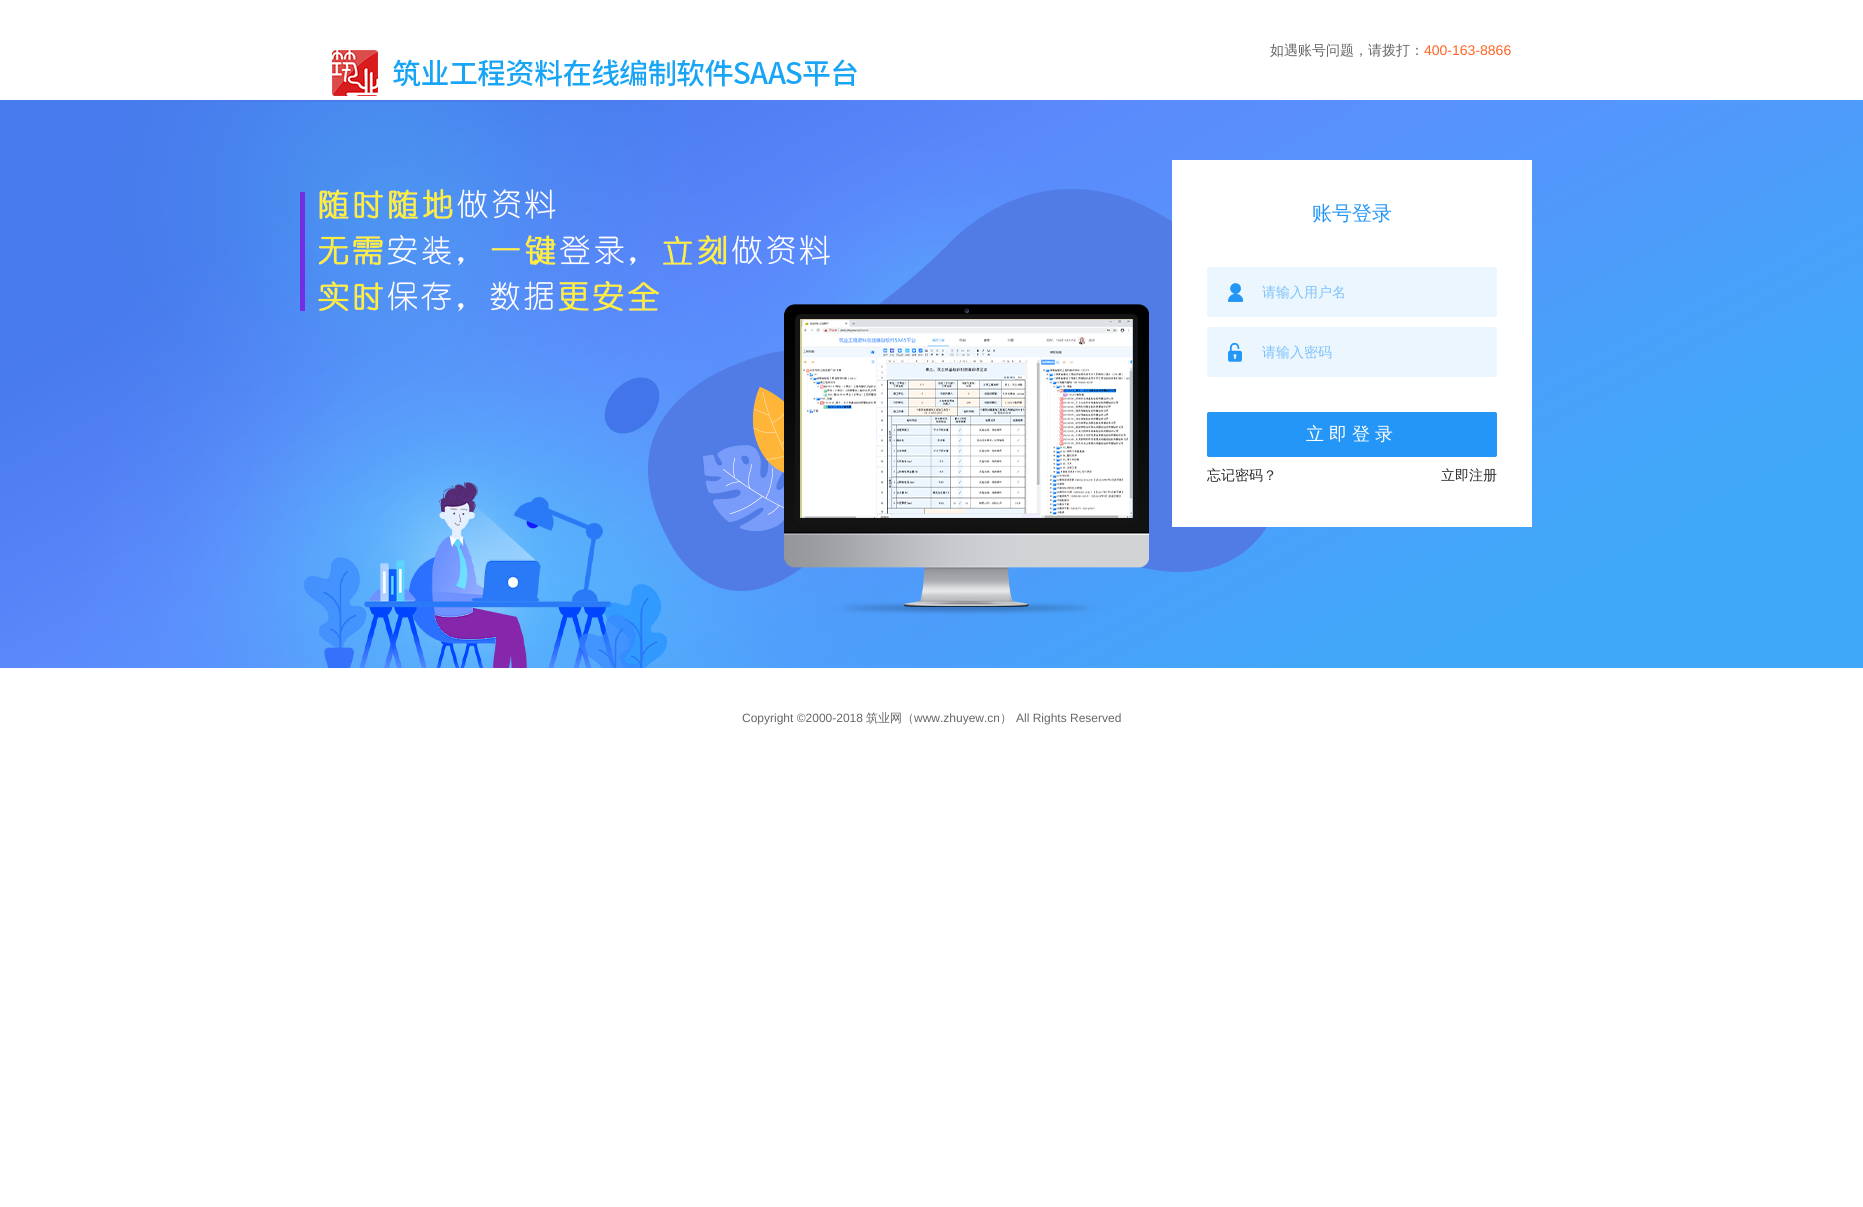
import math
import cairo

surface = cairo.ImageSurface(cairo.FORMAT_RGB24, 1863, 1207)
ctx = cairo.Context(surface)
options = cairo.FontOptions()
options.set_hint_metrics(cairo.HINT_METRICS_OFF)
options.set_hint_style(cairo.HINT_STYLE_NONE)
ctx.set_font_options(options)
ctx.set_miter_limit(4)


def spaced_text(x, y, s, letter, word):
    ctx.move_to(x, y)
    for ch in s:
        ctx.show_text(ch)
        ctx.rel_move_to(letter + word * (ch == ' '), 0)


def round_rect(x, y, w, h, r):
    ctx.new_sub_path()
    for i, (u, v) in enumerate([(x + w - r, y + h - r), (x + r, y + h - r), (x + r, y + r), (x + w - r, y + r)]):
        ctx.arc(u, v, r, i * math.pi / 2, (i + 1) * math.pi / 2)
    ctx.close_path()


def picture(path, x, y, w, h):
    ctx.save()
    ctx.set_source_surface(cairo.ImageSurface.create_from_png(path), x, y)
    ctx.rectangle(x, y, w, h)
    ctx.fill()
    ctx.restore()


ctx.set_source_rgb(1, 1, 1)
ctx.paint()
picture("img1.png", 332, 50, 525, 46)
ctx.select_font_face("WenQuanYi Zen Hei Medium")
ctx.set_font_size(14)
ctx.set_source_rgb(0.4, 0.4, 0.4)
ctx.move_to(1270, 55)
ctx.show_text("如遇账号问题，请拨打：")
ctx.select_font_face("Liberation Sans")
ctx.set_source_rgb(1, 0.388, 0.141)
ctx.move_to(1424, 55)
ctx.show_text("400-163-8866")
picture("img2.png", 0, 100, 1863, 568)
ctx.set_source_rgb(1, 1, 1)
ctx.rectangle(1172, 160, 360, 367)
ctx.fill()
ctx.select_font_face("WenQuanYi Zen Hei Medium")
ctx.set_font_size(20)
ctx.set_source_rgb(0.141, 0.588, 0.965)
ctx.move_to(1312, 220)
ctx.show_text("账号登录")
ctx.set_source_rgb(0.918, 0.961, 1)
ctx.rectangle(1207, 267, 290, 50)
ctx.fill()
picture("img3.png", 1228, 283, 15, 19)
ctx.set_font_size(14)
ctx.set_source_rgb(0.498, 0.761, 0.98)
ctx.move_to(1262, 297)
ctx.show_text("请输入用户名")
ctx.set_source_rgb(0.918, 0.961, 1)
ctx.rectangle(1207, 327, 290, 50)
ctx.fill()
picture("img4.png", 1228, 343, 14, 19)
ctx.set_source_rgb(0.498, 0.761, 0.98)
ctx.move_to(1262, 357)
ctx.show_text("请输入密码")
ctx.set_source_rgb(0.141, 0.588, 0.965)
round_rect(1207, 412, 290, 45, 2)
ctx.fill()
ctx.set_font_size(18)
ctx.set_source_rgb(1, 1, 1)
spaced_text(1306, 440, "立即登录", 5, 0)
ctx.set_font_size(14)
ctx.set_source_rgb(0.169, 0.169, 0.169)
ctx.move_to(1207, 480)
ctx.show_text("忘记密码？")
ctx.move_to(1441, 480)
ctx.show_text("立即注册")
ctx.select_font_face("Liberation Sans")
ctx.set_font_size(12)
ctx.set_source_rgb(0.4, 0.4, 0.4)
ctx.move_to(742, 722)
ctx.show_text("Copyright ©2000-2018")
ctx.select_font_face("WenQuanYi Zen Hei Medium")
ctx.move_to(866, 722)
ctx.show_text("筑业网（")
ctx.select_font_face("Liberation Sans")
ctx.move_to(914, 722)
ctx.show_text("www.zhuyew.cn")
ctx.select_font_face("WenQuanYi Zen Hei Medium")
ctx.move_to(1000, 722)
ctx.show_text("）")
ctx.select_font_face("Liberation Sans")
ctx.move_to(1016, 722)
ctx.show_text("All Rights Reserved")
surface.write_to_png("page.png")
